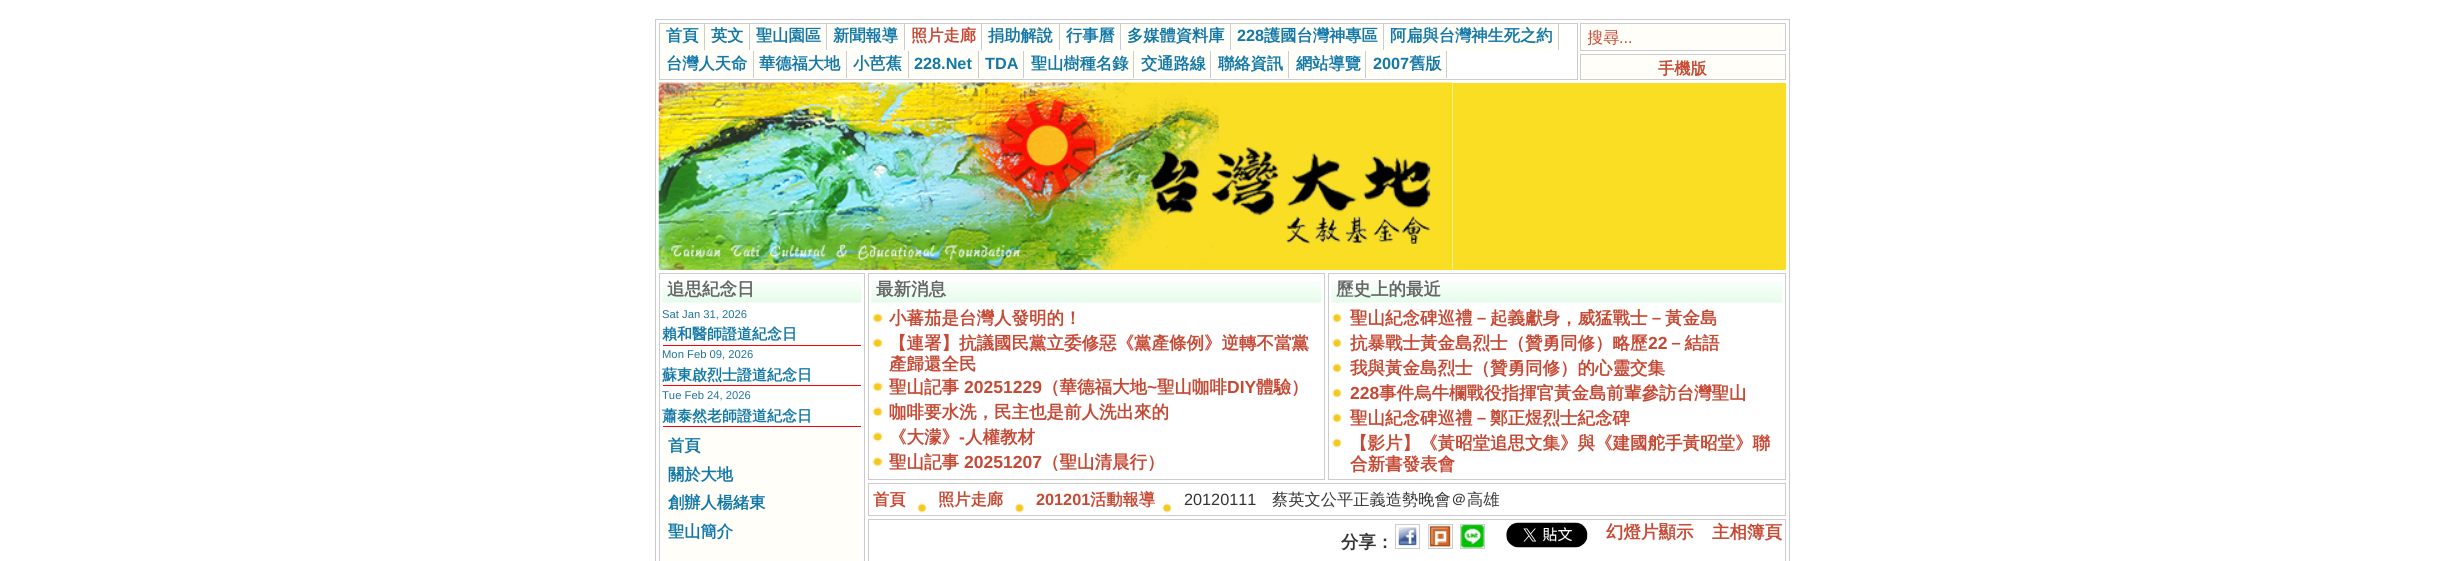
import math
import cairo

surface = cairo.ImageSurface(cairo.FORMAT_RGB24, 2443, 561)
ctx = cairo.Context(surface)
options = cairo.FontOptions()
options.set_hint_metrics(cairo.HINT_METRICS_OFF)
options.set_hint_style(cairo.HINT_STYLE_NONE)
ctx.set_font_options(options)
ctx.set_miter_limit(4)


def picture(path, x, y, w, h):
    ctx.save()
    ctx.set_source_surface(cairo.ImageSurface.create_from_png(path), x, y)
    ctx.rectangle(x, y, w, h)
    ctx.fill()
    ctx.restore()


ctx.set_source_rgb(1, 1, 1)
ctx.paint()
ctx.rectangle(655.5, 19.5, 1134, 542)
ctx.set_source_rgb(0.8, 0.8, 0.8)
ctx.set_line_width(1)
ctx.stroke()
ctx.rectangle(659.5, 23.5, 918, 56)
ctx.stroke()
ctx.rectangle(704, 24, 1, 27)
ctx.fill()
ctx.set_source_rgb(1, 0.996, 0.973)
ctx.rectangle(660, 50, 45, 1)
ctx.fill()
ctx.rectangle(660, 24, 44, 26)
ctx.fill()
ctx.select_font_face("WenQuanYi Zen Hei", cairo.FONT_SLANT_NORMAL, cairo.FONT_WEIGHT_BOLD)
ctx.set_font_size(16.25)
ctx.set_source_rgb(0.078, 0.471, 0.655)
ctx.move_to(666, 41)
ctx.show_text("首頁")
ctx.set_source_rgb(0.8, 0.8, 0.8)
ctx.rectangle(749, 24, 1, 27)
ctx.fill()
ctx.set_source_rgb(1, 0.996, 0.973)
ctx.rectangle(705, 50, 45, 1)
ctx.fill()
ctx.rectangle(705, 24, 44, 26)
ctx.fill()
ctx.set_source_rgb(0.078, 0.471, 0.655)
ctx.move_to(711, 41)
ctx.show_text("英文")
ctx.set_source_rgb(0.8, 0.8, 0.8)
ctx.rectangle(826, 24, 1, 27)
ctx.fill()
ctx.set_source_rgb(1, 0.996, 0.973)
ctx.rectangle(750, 50, 78, 1)
ctx.fill()
ctx.rectangle(750, 24, 76, 26)
ctx.fill()
ctx.set_source_rgb(0.078, 0.471, 0.655)
ctx.move_to(756, 41)
ctx.show_text("聖山園區")
ctx.set_source_rgb(0.8, 0.8, 0.8)
ctx.rectangle(904, 24, 1, 27)
ctx.fill()
ctx.set_source_rgb(1, 0.996, 0.973)
ctx.rectangle(828, 50, 77, 1)
ctx.fill()
ctx.rectangle(828, 24, 76, 26)
ctx.fill()
ctx.set_source_rgb(0.078, 0.471, 0.655)
ctx.move_to(833, 41)
ctx.show_text("新聞報導")
ctx.set_source_rgb(0.8, 0.8, 0.8)
ctx.rectangle(981, 24, 1, 27)
ctx.fill()
ctx.set_source_rgb(1, 0.996, 0.973)
ctx.rectangle(905, 50, 78, 1)
ctx.fill()
ctx.rectangle(905, 49, 76, 1)
ctx.fill()
ctx.set_source_rgb(0.776, 0.286, 0.204)
ctx.move_to(911, 41)
ctx.show_text("照片走廊")
ctx.set_source_rgb(0.8, 0.8, 0.8)
ctx.rectangle(1059, 24, 1, 27)
ctx.fill()
ctx.set_source_rgb(1, 0.996, 0.973)
ctx.rectangle(983, 50, 77, 1)
ctx.fill()
ctx.rectangle(983, 24, 76, 26)
ctx.fill()
ctx.set_source_rgb(0.078, 0.471, 0.655)
ctx.move_to(988, 41)
ctx.show_text("捐助解說")
ctx.set_source_rgb(0.8, 0.8, 0.8)
ctx.rectangle(1120, 24, 1, 27)
ctx.fill()
ctx.set_source_rgb(1, 0.996, 0.973)
ctx.rectangle(1060, 50, 61, 1)
ctx.fill()
ctx.rectangle(1060, 24, 60, 26)
ctx.fill()
ctx.set_source_rgb(0.078, 0.471, 0.655)
ctx.move_to(1066, 41)
ctx.show_text("行事曆")
ctx.set_source_rgb(0.8, 0.8, 0.8)
ctx.rectangle(1230, 24, 1, 27)
ctx.fill()
ctx.set_source_rgb(1, 0.996, 0.973)
ctx.rectangle(1121, 50, 110, 1)
ctx.fill()
ctx.rectangle(1121, 24, 109, 26)
ctx.fill()
ctx.set_source_rgb(0.078, 0.471, 0.655)
ctx.move_to(1127, 41)
ctx.show_text("多媒體資料庫")
ctx.set_source_rgb(0.8, 0.8, 0.8)
ctx.rectangle(1383, 24, 1, 27)
ctx.fill()
ctx.set_source_rgb(1, 0.996, 0.973)
ctx.rectangle(1231, 50, 153, 1)
ctx.fill()
ctx.rectangle(1231, 24, 152, 26)
ctx.fill()
ctx.select_font_face("Liberation Sans", cairo.FONT_SLANT_NORMAL, cairo.FONT_WEIGHT_BOLD)
ctx.set_source_rgb(0.078, 0.471, 0.655)
ctx.move_to(1237, 41)
ctx.show_text("228")
ctx.select_font_face("WenQuanYi Zen Hei", cairo.FONT_SLANT_NORMAL, cairo.FONT_WEIGHT_BOLD)
ctx.move_to(1264, 41)
ctx.show_text("護國台灣神專區")
ctx.set_source_rgb(0.8, 0.8, 0.8)
ctx.rectangle(1558, 24, 1, 27)
ctx.fill()
ctx.set_source_rgb(1, 0.996, 0.973)
ctx.rectangle(1384, 50, 175, 1)
ctx.fill()
ctx.rectangle(1384, 24, 174, 26)
ctx.fill()
ctx.set_source_rgb(0.078, 0.471, 0.655)
ctx.move_to(1390, 41)
ctx.show_text("阿扁與台灣神生死之約")
ctx.set_source_rgb(0.8, 0.8, 0.8)
ctx.rectangle(753, 51, 1, 28)
ctx.fill()
ctx.set_source_rgb(1, 0.996, 0.973)
ctx.rectangle(660, 78, 94, 1)
ctx.fill()
ctx.rectangle(660, 51, 93, 27)
ctx.fill()
ctx.set_source_rgb(0.078, 0.471, 0.655)
ctx.move_to(666, 69)
ctx.show_text("台灣人天命")
ctx.set_source_rgb(0.8, 0.8, 0.8)
ctx.rectangle(846, 51, 1, 28)
ctx.fill()
ctx.set_source_rgb(1, 0.996, 0.973)
ctx.rectangle(754, 78, 94, 1)
ctx.fill()
ctx.rectangle(754, 51, 92, 27)
ctx.fill()
ctx.set_source_rgb(0.078, 0.471, 0.655)
ctx.move_to(759, 69)
ctx.show_text("華德福大地")
ctx.set_source_rgb(0.8, 0.8, 0.8)
ctx.rectangle(908, 51, 1, 28)
ctx.fill()
ctx.set_source_rgb(1, 0.996, 0.973)
ctx.rectangle(848, 78, 61, 1)
ctx.fill()
ctx.rectangle(848, 51, 60, 27)
ctx.fill()
ctx.set_source_rgb(0.078, 0.471, 0.655)
ctx.move_to(853, 69)
ctx.show_text("小芭蕉")
ctx.set_source_rgb(0.8, 0.8, 0.8)
ctx.rectangle(978, 51, 1, 28)
ctx.fill()
ctx.set_source_rgb(1, 0.996, 0.973)
ctx.rectangle(909, 78, 70, 1)
ctx.fill()
ctx.rectangle(909, 51, 69, 27)
ctx.fill()
ctx.select_font_face("Liberation Sans", cairo.FONT_SLANT_NORMAL, cairo.FONT_WEIGHT_BOLD)
ctx.set_source_rgb(0.078, 0.471, 0.655)
ctx.move_to(914, 69)
ctx.show_text("228.Net")
ctx.set_source_rgb(0.8, 0.8, 0.8)
ctx.rectangle(1023, 51, 1, 28)
ctx.fill()
ctx.set_source_rgb(1, 0.996, 0.973)
ctx.rectangle(979, 78, 45, 1)
ctx.fill()
ctx.rectangle(979, 51, 44, 27)
ctx.fill()
ctx.set_source_rgb(0.078, 0.471, 0.655)
ctx.move_to(985, 69)
ctx.show_text("TDA")
ctx.set_source_rgb(0.8, 0.8, 0.8)
ctx.rectangle(1133, 51, 1, 28)
ctx.fill()
ctx.set_source_rgb(1, 0.996, 0.973)
ctx.rectangle(1024, 78, 110, 1)
ctx.fill()
ctx.rectangle(1024, 51, 109, 27)
ctx.fill()
ctx.select_font_face("WenQuanYi Zen Hei", cairo.FONT_SLANT_NORMAL, cairo.FONT_WEIGHT_BOLD)
ctx.set_source_rgb(0.078, 0.471, 0.655)
ctx.move_to(1031, 69)
ctx.show_text("聖山樹種名錄")
ctx.set_source_rgb(0.8, 0.8, 0.8)
ctx.rectangle(1210, 51, 1, 28)
ctx.fill()
ctx.set_source_rgb(1, 0.996, 0.973)
ctx.rectangle(1134, 78, 77, 1)
ctx.fill()
ctx.rectangle(1134, 51, 76, 27)
ctx.fill()
ctx.set_source_rgb(0.078, 0.471, 0.655)
ctx.move_to(1141, 69)
ctx.show_text("交通路線")
ctx.set_source_rgb(0.8, 0.8, 0.8)
ctx.rectangle(1288, 51, 1, 28)
ctx.fill()
ctx.set_source_rgb(1, 0.996, 0.973)
ctx.rectangle(1211, 78, 78, 1)
ctx.fill()
ctx.rectangle(1211, 51, 77, 27)
ctx.fill()
ctx.set_source_rgb(0.078, 0.471, 0.655)
ctx.move_to(1218, 69)
ctx.show_text("聯絡資訊")
ctx.set_source_rgb(0.8, 0.8, 0.8)
ctx.rectangle(1365, 51, 1, 28)
ctx.fill()
ctx.set_source_rgb(1, 0.996, 0.973)
ctx.rectangle(1289, 78, 77, 1)
ctx.fill()
ctx.rectangle(1289, 51, 76, 27)
ctx.fill()
ctx.set_source_rgb(0.078, 0.471, 0.655)
ctx.move_to(1296, 69)
ctx.show_text("網站導覽")
ctx.set_source_rgb(0.8, 0.8, 0.8)
ctx.rectangle(1446, 51, 1, 28)
ctx.fill()
ctx.set_source_rgb(1, 0.996, 0.973)
ctx.rectangle(1366, 78, 82, 1)
ctx.fill()
ctx.rectangle(1366, 51, 80, 27)
ctx.fill()
ctx.select_font_face("Liberation Sans", cairo.FONT_SLANT_NORMAL, cairo.FONT_WEIGHT_BOLD)
ctx.set_source_rgb(0.078, 0.471, 0.655)
ctx.move_to(1373, 69)
ctx.show_text("2007")
ctx.select_font_face("WenQuanYi Zen Hei", cairo.FONT_SLANT_NORMAL, cairo.FONT_WEIGHT_BOLD)
ctx.move_to(1409, 69)
ctx.show_text("舊版")
ctx.rectangle(1580.5, 23.5, 205, 27)
ctx.set_source_rgb(0.8, 0.8, 0.8)
ctx.stroke()
ctx.set_source_rgb(1, 0.996, 0.973)
ctx.rectangle(1581, 24, 204, 26)
ctx.fill()
ctx.save()
ctx.rectangle(1588, 28, 197, 20)
ctx.clip()
ctx.select_font_face("WenQuanYi Zen Hei Medium")
ctx.set_source_rgb(0.776, 0.286, 0.204)
ctx.move_to(1587, 43)
ctx.show_text("搜尋")
ctx.restore()
ctx.select_font_face("Liberation Sans")
ctx.set_source_rgb(0.776, 0.286, 0.204)
ctx.move_to(1619, 43)
ctx.show_text("...")
ctx.set_source_rgb(1, 0.996, 0.973)
ctx.rectangle(1580.5, 54.5, 205, 25)
ctx.fill_preserve()
ctx.set_source_rgb(0.8, 0.8, 0.8)
ctx.stroke()
ctx.select_font_face("WenQuanYi Zen Hei", cairo.FONT_SLANT_NORMAL, cairo.FONT_WEIGHT_BOLD)
ctx.set_source_rgb(0.776, 0.286, 0.204)
ctx.move_to(1658, 74)
ctx.show_text("手機版")
picture("img1.png", 658, 82, 795, 188)
ctx.set_source_rgb(0.976, 0.871, 0.141)
ctx.rectangle(1453, 83, 333, 187)
ctx.fill()
ctx.rectangle(659.5, 273.5, 205, 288)
ctx.set_source_rgb(0.8, 0.8, 0.8)
ctx.stroke()
picture("img2.png", 662, 281, 200, 22)
ctx.set_font_size(17.5)
ctx.set_source_rgb(0.4, 0.4, 0.4)
ctx.move_to(667, 295)
ctx.show_text("追思紀念日")
ctx.set_source_rgb(1, 0, 0)
ctx.rectangle(663, 345, 198, 1)
ctx.fill()
ctx.select_font_face("Liberation Sans")
ctx.set_font_size(11.25)
ctx.set_source_rgb(0.129, 0.451, 0.604)
ctx.move_to(662, 318)
ctx.show_text("Sat Jan 31, 2026")
ctx.select_font_face("WenQuanYi Zen Hei", cairo.FONT_SLANT_NORMAL, cairo.FONT_WEIGHT_BOLD)
ctx.set_font_size(15)
ctx.set_source_rgb(0.078, 0.471, 0.655)
ctx.move_to(662, 339)
ctx.show_text("賴和醫師證道紀念日")
ctx.set_source_rgb(1, 0, 0)
ctx.rectangle(663, 385, 198, 1)
ctx.fill()
ctx.select_font_face("Liberation Sans")
ctx.set_font_size(11.25)
ctx.set_source_rgb(0.129, 0.451, 0.604)
ctx.move_to(662, 358)
ctx.show_text("Mon Feb 09, 2026")
ctx.select_font_face("WenQuanYi Zen Hei", cairo.FONT_SLANT_NORMAL, cairo.FONT_WEIGHT_BOLD)
ctx.set_font_size(15)
ctx.set_source_rgb(0.078, 0.471, 0.655)
ctx.move_to(662, 380)
ctx.show_text("蘇東啟烈士證道紀念日")
ctx.set_source_rgb(1, 0, 0)
ctx.rectangle(663, 426, 198, 1)
ctx.fill()
ctx.select_font_face("Liberation Sans")
ctx.set_font_size(11.25)
ctx.set_source_rgb(0.129, 0.451, 0.604)
ctx.move_to(662, 399)
ctx.show_text("Tue Feb 24, 2026")
ctx.select_font_face("WenQuanYi Zen Hei", cairo.FONT_SLANT_NORMAL, cairo.FONT_WEIGHT_BOLD)
ctx.set_font_size(15)
ctx.set_source_rgb(0.078, 0.471, 0.655)
ctx.move_to(662, 421)
ctx.show_text("蕭泰然老師證道紀念日")
ctx.set_source_rgb(1, 0.996, 0.973)
ctx.rectangle(663, 430, 198, 131)
ctx.fill()
ctx.set_font_size(16.25)
ctx.set_source_rgb(0.078, 0.471, 0.655)
ctx.move_to(668, 451)
ctx.show_text("首頁")
ctx.move_to(668, 480)
ctx.show_text("關於大地")
ctx.move_to(668, 508)
ctx.show_text("創辦人楊緒東")
ctx.move_to(668, 537)
ctx.show_text("聖山簡介")
ctx.rectangle(868.5, 273.5, 456, 206)
ctx.set_source_rgb(0.8, 0.8, 0.8)
ctx.stroke()
picture("img3.png", 871, 281, 451, 22)
ctx.set_font_size(17.5)
ctx.set_source_rgb(0.4, 0.4, 0.4)
ctx.move_to(876, 295)
ctx.show_text("最新消息")
picture("img4.png", 872, 313, 11, 10)
ctx.set_source_rgb(0.776, 0.286, 0.204)
ctx.move_to(889, 324)
ctx.show_text("小蕃茄是台灣人發明的！")
picture("img4.png", 872, 338, 11, 10)
ctx.move_to(889, 349)
ctx.show_text("【連署】抗議國民黨立委修惡《黨產條例》逆轉不當黨")
ctx.move_to(889, 370)
ctx.show_text("產歸還全民")
picture("img5.png", 872, 382, 11, 10)
ctx.move_to(889, 393)
ctx.show_text("聖山記事")
ctx.select_font_face("Liberation Sans", cairo.FONT_SLANT_NORMAL, cairo.FONT_WEIGHT_BOLD)
ctx.move_to(964, 393)
ctx.show_text("20251229")
ctx.select_font_face("WenQuanYi Zen Hei", cairo.FONT_SLANT_NORMAL, cairo.FONT_WEIGHT_BOLD)
ctx.move_to(1042, 393)
ctx.show_text("（華德福大地")
ctx.select_font_face("Liberation Sans", cairo.FONT_SLANT_NORMAL, cairo.FONT_WEIGHT_BOLD)
ctx.move_to(1147, 393)
ctx.show_text("~")
ctx.select_font_face("WenQuanYi Zen Hei", cairo.FONT_SLANT_NORMAL, cairo.FONT_WEIGHT_BOLD)
ctx.move_to(1157, 393)
ctx.show_text("聖山咖啡")
ctx.select_font_face("Liberation Sans", cairo.FONT_SLANT_NORMAL, cairo.FONT_WEIGHT_BOLD)
ctx.move_to(1227, 393)
ctx.show_text("DIY")
ctx.select_font_face("WenQuanYi Zen Hei", cairo.FONT_SLANT_NORMAL, cairo.FONT_WEIGHT_BOLD)
ctx.move_to(1256, 393)
ctx.show_text("體驗）")
picture("img5.png", 872, 407, 11, 10)
ctx.move_to(889, 418)
ctx.show_text("咖啡要水洗，民主也是前人洗出來的")
picture("img5.png", 872, 432, 11, 10)
ctx.move_to(889, 443)
ctx.show_text("《大濛》")
ctx.select_font_face("Liberation Sans", cairo.FONT_SLANT_NORMAL, cairo.FONT_WEIGHT_BOLD)
ctx.move_to(959, 443)
ctx.show_text("-")
ctx.select_font_face("WenQuanYi Zen Hei", cairo.FONT_SLANT_NORMAL, cairo.FONT_WEIGHT_BOLD)
ctx.move_to(965, 443)
ctx.show_text("人權教材")
picture("img5.png", 872, 457, 11, 10)
ctx.move_to(889, 468)
ctx.show_text("聖山記事")
ctx.select_font_face("Liberation Sans", cairo.FONT_SLANT_NORMAL, cairo.FONT_WEIGHT_BOLD)
ctx.move_to(964, 468)
ctx.show_text("20251207")
ctx.select_font_face("WenQuanYi Zen Hei", cairo.FONT_SLANT_NORMAL, cairo.FONT_WEIGHT_BOLD)
ctx.move_to(1042, 468)
ctx.show_text("（聖山清晨行）")
ctx.rectangle(1328.5, 273.5, 457, 206)
ctx.set_source_rgb(0.8, 0.8, 0.8)
ctx.stroke()
picture("img6.png", 1331, 281, 452, 22)
ctx.set_source_rgb(0.4, 0.4, 0.4)
ctx.move_to(1336, 295)
ctx.show_text("歷史上的最近")
picture("img7.png", 1332, 313, 10, 10)
ctx.set_source_rgb(0.776, 0.286, 0.204)
ctx.move_to(1350, 324)
ctx.show_text("聖山紀念碑巡禮－起義獻身，威猛戰士－黃金島")
picture("img7.png", 1332, 338, 10, 10)
ctx.move_to(1350, 349)
ctx.show_text("抗暴戰士黃金島烈士（贊勇同修）略歷")
ctx.select_font_face("Liberation Sans", cairo.FONT_SLANT_NORMAL, cairo.FONT_WEIGHT_BOLD)
ctx.move_to(1648, 349)
ctx.show_text("22")
ctx.select_font_face("WenQuanYi Zen Hei", cairo.FONT_SLANT_NORMAL, cairo.FONT_WEIGHT_BOLD)
ctx.move_to(1667, 349)
ctx.show_text("－結語")
picture("img7.png", 1332, 363, 10, 10)
ctx.move_to(1350, 374)
ctx.show_text("我與黃金島烈士（贊勇同修）的心靈交集")
picture("img7.png", 1332, 388, 10, 10)
ctx.select_font_face("Liberation Sans", cairo.FONT_SLANT_NORMAL, cairo.FONT_WEIGHT_BOLD)
ctx.move_to(1350, 399)
ctx.show_text("228")
ctx.select_font_face("WenQuanYi Zen Hei", cairo.FONT_SLANT_NORMAL, cairo.FONT_WEIGHT_BOLD)
ctx.move_to(1379, 399)
ctx.show_text("事件烏牛欄戰役指揮官黃金島前輩參訪台灣聖山")
picture("img7.png", 1332, 413, 10, 10)
ctx.move_to(1350, 424)
ctx.show_text("聖山紀念碑巡禮－鄭正煜烈士紀念碑")
picture("img7.png", 1332, 438, 10, 10)
ctx.move_to(1350, 449)
ctx.show_text("【影片】《黃昭堂追思文集》與《建國舵手黃昭堂》聯")
ctx.move_to(1350, 470)
ctx.show_text("合新書發表會")
ctx.rectangle(868.5, 483.5, 917, 32)
ctx.set_source_rgb(0.8, 0.8, 0.8)
ctx.stroke()
ctx.set_font_size(16.25)
ctx.set_source_rgb(0.776, 0.286, 0.204)
ctx.move_to(873, 505)
ctx.show_text("首頁")
ctx.move_to(938, 505)
ctx.show_text("照片走廊")
ctx.select_font_face("Liberation Sans", cairo.FONT_SLANT_NORMAL, cairo.FONT_WEIGHT_BOLD)
ctx.move_to(1036, 505)
ctx.show_text("201201")
ctx.select_font_face("WenQuanYi Zen Hei", cairo.FONT_SLANT_NORMAL, cairo.FONT_WEIGHT_BOLD)
ctx.move_to(1090, 505)
ctx.show_text("活動報導")
ctx.select_font_face("Liberation Sans")
ctx.set_source_rgb(0.2, 0.2, 0.2)
ctx.move_to(1184, 505)
ctx.show_text("20120111")
ctx.select_font_face("WenQuanYi Zen Hei Medium")
ctx.move_to(1272, 505)
ctx.show_text("蔡英文公平正義造勢晚會＠高雄")
picture("img7.png", 917, 503, 10, 10)
picture("img8.png", 1014, 503, 10, 10)
picture("img7.png", 1162, 503, 10, 10)
ctx.rectangle(868.5, 519.5, 917, 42)
ctx.set_source_rgb(0.8, 0.8, 0.8)
ctx.stroke()
ctx.select_font_face("WenQuanYi Zen Hei", cairo.FONT_SLANT_NORMAL, cairo.FONT_WEIGHT_BOLD)
ctx.set_font_size(17.5)
ctx.set_source_rgb(0.2, 0.2, 0.2)
ctx.move_to(1341, 548)
ctx.show_text("分享：")
ctx.rectangle(1395.5, 524.5, 24, 24)
ctx.set_source_rgb(0.8, 0.8, 0.8)
ctx.stroke()
ctx.rectangle(1428.5, 524.5, 24, 24)
ctx.stroke()
ctx.rectangle(1460.5, 524.5, 24, 24)
ctx.stroke()
picture("img9.png", 1398, 527, 19, 19)
picture("img10.png", 1428, 525, 23, 23)
picture("img11.png", 1461, 525, 23, 23)
picture("img12.png", 1506, 522, 82, 26)
ctx.set_source_rgb(0.776, 0.286, 0.204)
ctx.move_to(1606, 538)
ctx.show_text("幻燈片顯示")
ctx.move_to(1712, 538)
ctx.show_text("主相簿頁")
surface.write_to_png("page.png")
